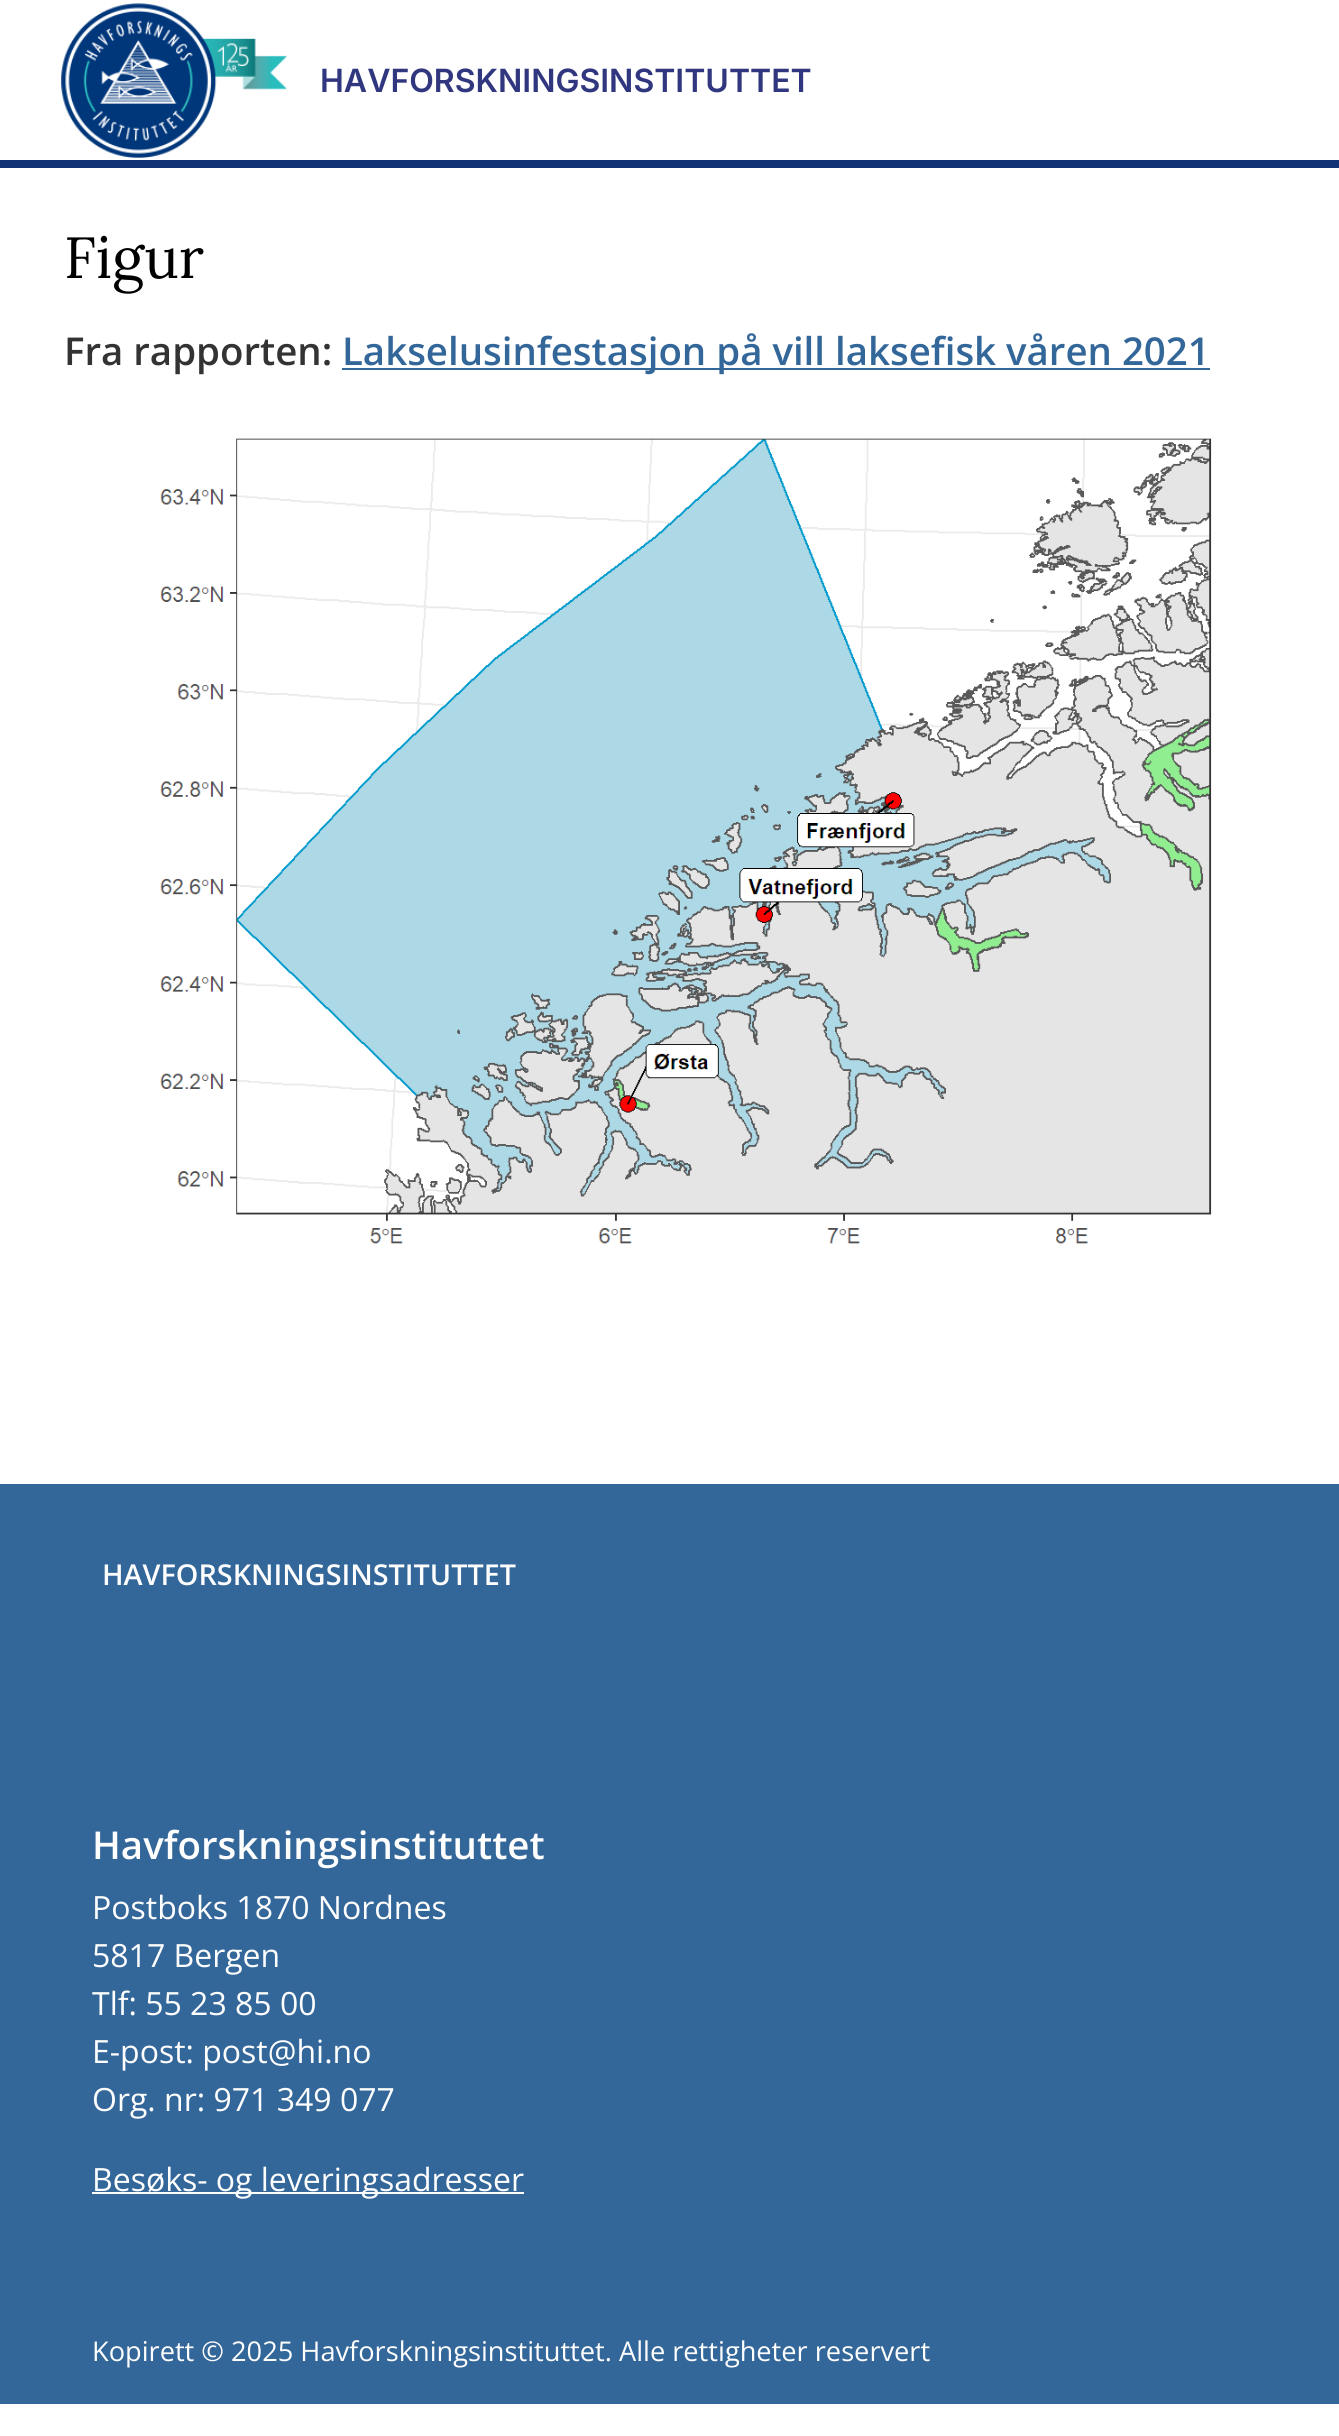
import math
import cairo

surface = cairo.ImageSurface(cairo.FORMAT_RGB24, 1339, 2436)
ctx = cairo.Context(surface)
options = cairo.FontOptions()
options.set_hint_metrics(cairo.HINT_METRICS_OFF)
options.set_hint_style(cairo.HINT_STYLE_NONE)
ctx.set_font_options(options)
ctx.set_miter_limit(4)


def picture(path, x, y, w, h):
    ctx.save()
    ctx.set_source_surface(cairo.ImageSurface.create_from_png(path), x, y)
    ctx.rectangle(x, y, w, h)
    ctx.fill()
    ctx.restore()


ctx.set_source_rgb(1, 1, 1)
ctx.paint()
picture("img1.png", 61, 3, 226, 155)
ctx.select_font_face("Inter SemiBold")
ctx.set_font_size(32)
ctx.set_source_rgb(0.192, 0.216, 0.498)
ctx.move_to(320, 92)
ctx.show_text("HAVFORSKNINGSINSTITUTTET")
ctx.set_source_rgb(0.067, 0.196, 0.455)
ctx.rectangle(0, 160, 1339, 8)
ctx.fill()
ctx.select_font_face("Lora")
ctx.set_font_size(58)
ctx.set_source_rgb(0, 0, 0)
ctx.move_to(64, 278)
ctx.show_text("Figur")
ctx.select_font_face("Open Sans SemiBold")
ctx.set_font_size(38.4)
ctx.set_source_rgb(0.2, 0.2, 0.2)
ctx.move_to(64, 365)
ctx.show_text("Fra rapporten:")
ctx.set_source_rgb(0.2, 0.4, 0.6)
ctx.rectangle(342, 368, 868, 2)
ctx.fill()
ctx.move_to(342, 365)
ctx.show_text("Lakselusinfestasjon på vill laksefisk våren 2021")
picture("img2.png", 160, 438, 1052, 806)
ctx.rectangle(0, 1484, 1339, 920)
ctx.fill()
ctx.set_font_size(28.75)
ctx.set_source_rgb(0.996, 0.996, 0.996)
ctx.move_to(102, 1585)
ctx.show_text("HAVFORSKNINGSINSTITUTTET")
ctx.set_font_size(38.4)
ctx.move_to(92, 1859)
ctx.show_text("Havforskningsinstituttet")
ctx.select_font_face("Open Sans")
ctx.set_font_size(32)
ctx.move_to(92, 1919)
ctx.show_text("Postboks 1870 Nordnes")
ctx.move_to(92, 1967)
ctx.show_text("5817 Bergen")
ctx.move_to(92, 2015)
ctx.show_text("Tlf: 55 23 85 00")
ctx.move_to(92, 2063)
ctx.show_text("E-post: post@hi.no")
ctx.move_to(92, 2111)
ctx.show_text("Org. nr: 971 349 077")
ctx.rectangle(92, 2192, 432, 2)
ctx.fill()
ctx.move_to(92, 2191)
ctx.show_text("Besøks- og leveringsadresser")
ctx.set_font_size(27.2)
ctx.move_to(92, 2361)
ctx.show_text("Kopirett © 2025 Havforskningsinstituttet. Alle rettigheter reservert")
surface.write_to_png("page.png")
